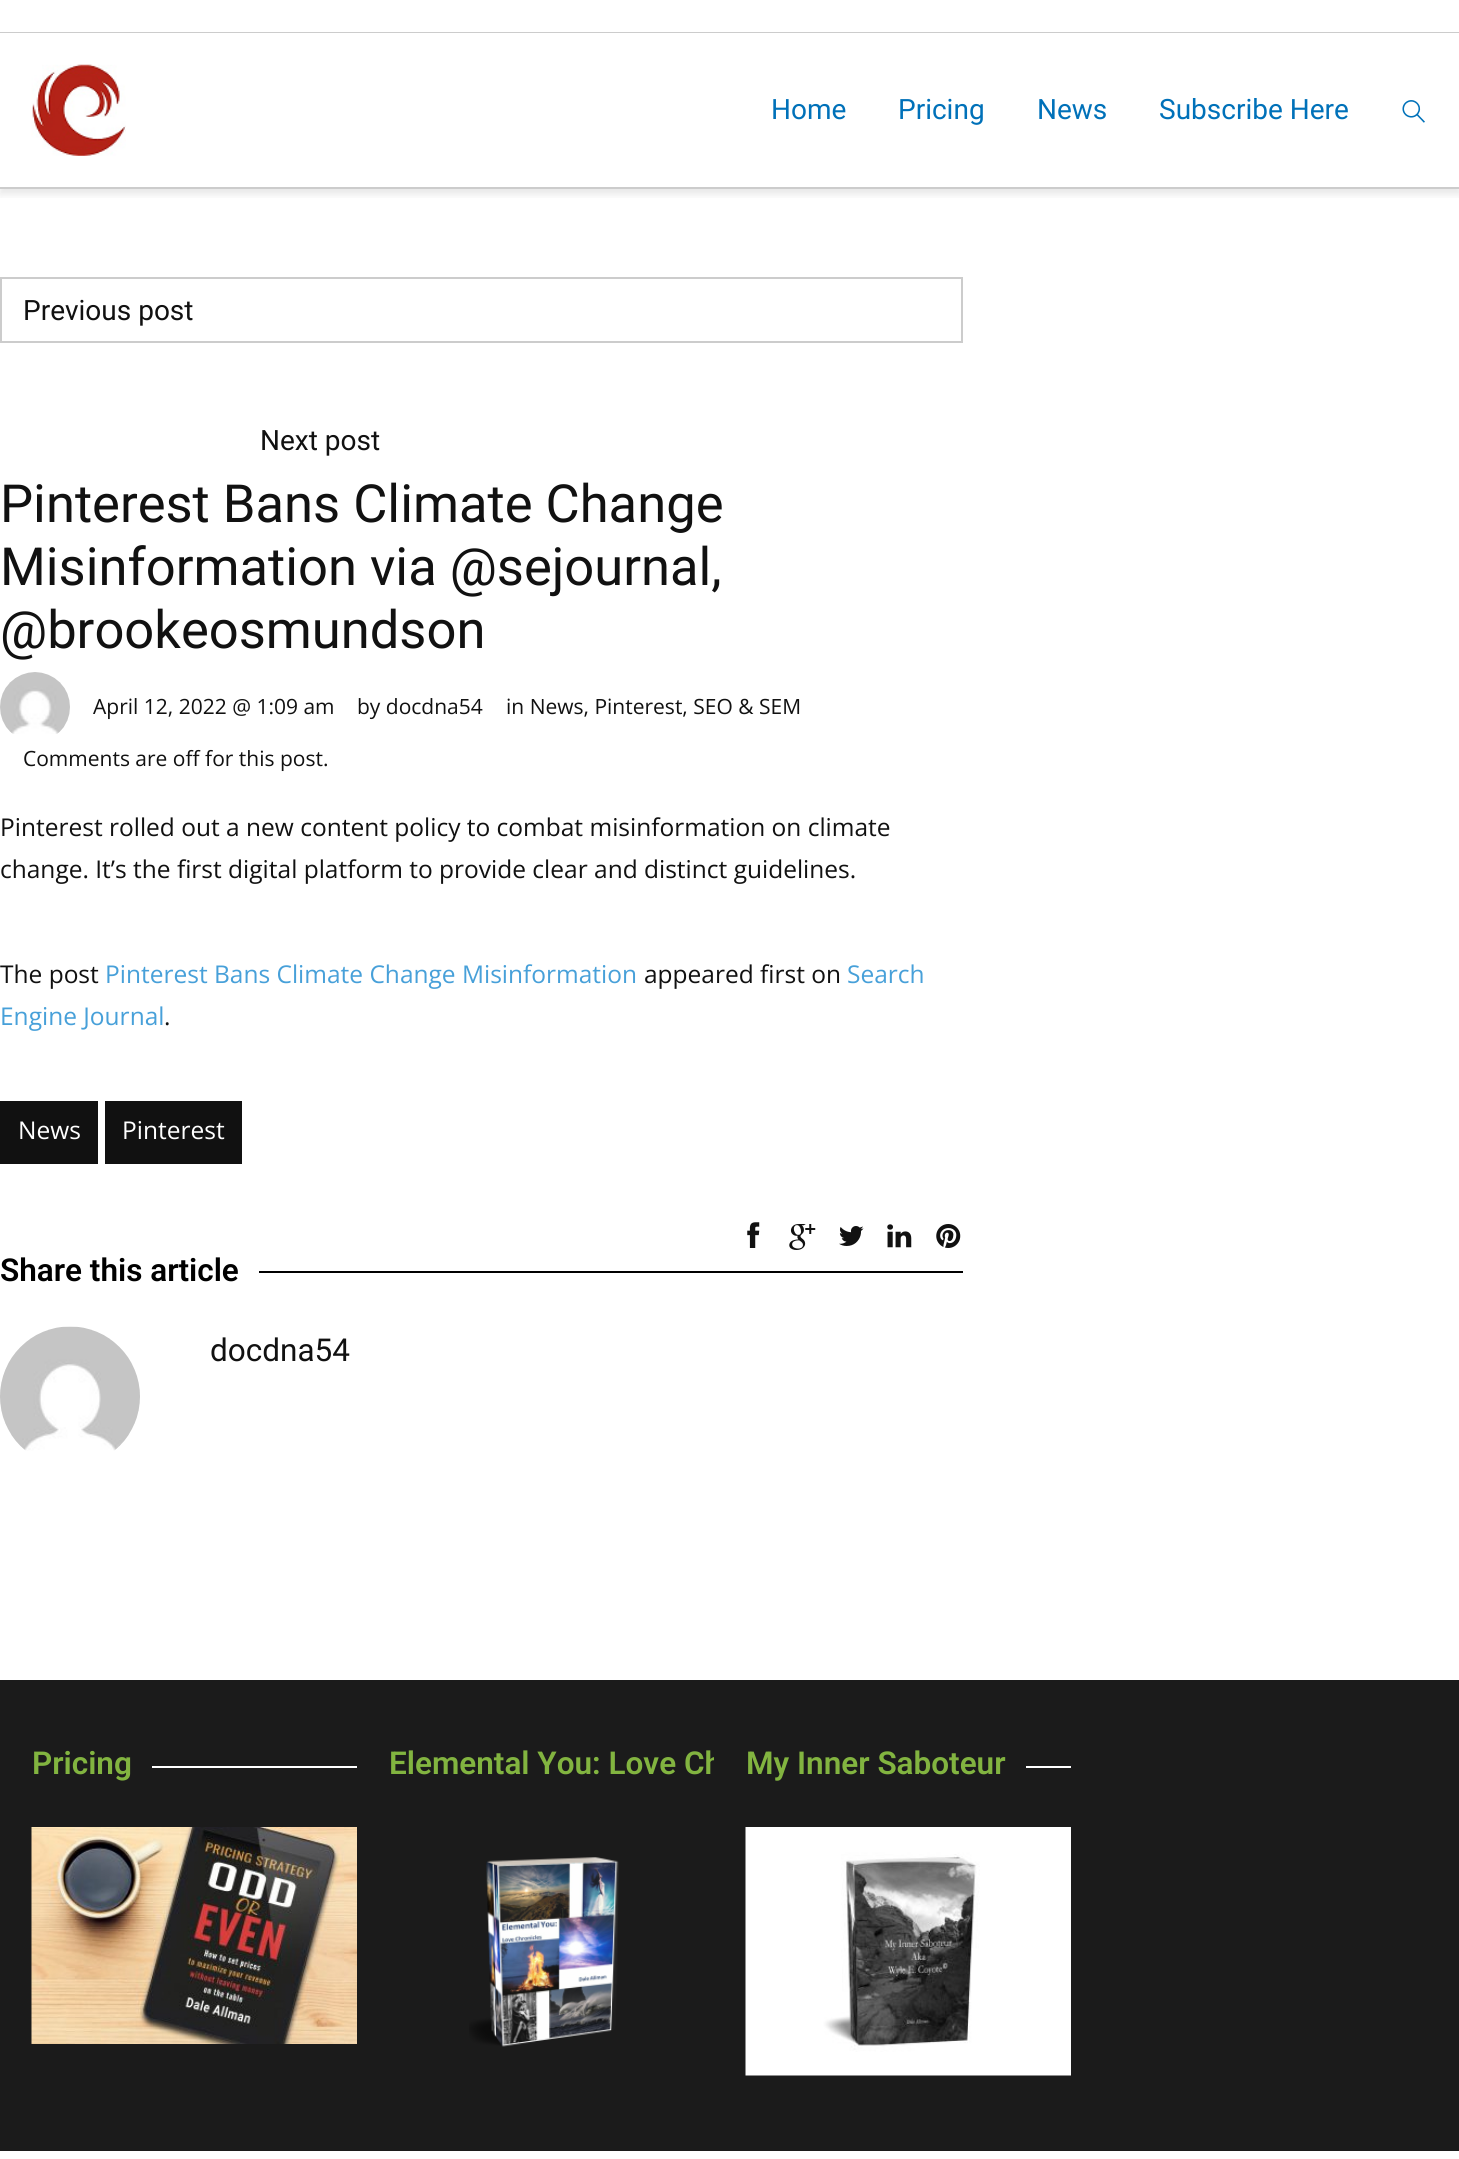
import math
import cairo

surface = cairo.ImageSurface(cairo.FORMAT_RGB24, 1459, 2159)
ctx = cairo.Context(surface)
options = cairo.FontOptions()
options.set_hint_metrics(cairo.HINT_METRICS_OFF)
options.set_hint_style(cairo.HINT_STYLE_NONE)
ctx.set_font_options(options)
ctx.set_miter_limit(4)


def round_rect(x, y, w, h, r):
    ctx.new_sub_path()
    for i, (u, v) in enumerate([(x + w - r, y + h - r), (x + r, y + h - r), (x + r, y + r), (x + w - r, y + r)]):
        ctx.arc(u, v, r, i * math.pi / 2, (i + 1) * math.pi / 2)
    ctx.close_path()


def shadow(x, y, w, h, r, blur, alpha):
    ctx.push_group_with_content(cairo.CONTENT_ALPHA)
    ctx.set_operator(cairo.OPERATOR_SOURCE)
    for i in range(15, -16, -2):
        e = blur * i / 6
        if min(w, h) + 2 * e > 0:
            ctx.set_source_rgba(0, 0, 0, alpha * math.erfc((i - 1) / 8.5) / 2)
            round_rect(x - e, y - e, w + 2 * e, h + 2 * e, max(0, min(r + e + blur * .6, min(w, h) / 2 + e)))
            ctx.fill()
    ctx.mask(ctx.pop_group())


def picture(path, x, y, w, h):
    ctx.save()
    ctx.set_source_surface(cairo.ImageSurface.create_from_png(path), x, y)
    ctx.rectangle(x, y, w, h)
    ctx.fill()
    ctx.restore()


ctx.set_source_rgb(1, 1, 1)
ctx.paint()
ctx.save()
ctx.rectangle(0, 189, 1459, 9)
ctx.clip()
ctx.set_source_rgb(0, 0, 0)
shadow(0, 5, 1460, 189, 0, 4.5, 0.1)
ctx.restore()
ctx.set_source_rgb(0.8, 0.8, 0.8)
ctx.rectangle(0, 187, 1459, 2)
ctx.fill()
ctx.rectangle(0, 32, 1459, 1)
ctx.fill()
picture("img1.png", 31, 64, 95, 92)
ctx.select_font_face("Roboto")
ctx.set_font_size(28)
ctx.set_source_rgb(0, 0.443, 0.725)
ctx.move_to(771, 119)
ctx.show_text("Home")
ctx.move_to(898, 119)
ctx.show_text("Pricing")
ctx.move_to(1037, 119)
ctx.show_text("News")
ctx.move_to(1159, 119)
ctx.show_text("Subscribe Here")
picture("img2.png", 1402, 100, 23, 23)
ctx.rectangle(1, 278, 961, 64)
ctx.set_source_rgb(0.8, 0.8, 0.8)
ctx.stroke()
ctx.set_source_rgb(0.067, 0.067, 0.067)
ctx.move_to(23, 320)
ctx.show_text("Previous post")
ctx.move_to(260, 450)
ctx.show_text("Next post")
ctx.set_font_size(52.5)
ctx.move_to(0, 522)
ctx.show_text("Pinterest Bans Climate Change")
ctx.move_to(0, 585)
ctx.show_text("Misinformation via @sejournal,")
ctx.move_to(0, 648)
ctx.show_text("@brookeosmundson")
picture("img3.png", 0, 672, 70, 62)
ctx.select_font_face("Open Sans")
ctx.set_font_size(21)
ctx.move_to(93, 714)
ctx.show_text("April 12, 2022 @ 1:09 am")
ctx.move_to(357, 714)
ctx.show_text("by docdna54")
ctx.move_to(506, 714)
ctx.show_text("in News, Pinterest, SEO & SEM")
ctx.move_to(23, 766)
ctx.show_text("Comments are off for this post.")
ctx.set_font_size(24.5)
ctx.move_to(0, 836)
ctx.show_text("Pinterest rolled out a new content policy to combat misinformation on climate")
ctx.move_to(0, 878)
ctx.show_text("change. It’s the first digital platform to provide clear and distinct guidelines.")
ctx.move_to(0, 983)
ctx.show_text("The post")
ctx.set_source_rgb(0.278, 0.627, 0.851)
ctx.move_to(105, 983)
ctx.show_text("Pinterest Bans Climate Change Misinformation")
ctx.set_source_rgb(0.067, 0.067, 0.067)
ctx.move_to(644, 983)
ctx.show_text("appeared first on")
ctx.set_source_rgb(0.278, 0.627, 0.851)
ctx.move_to(847, 983)
ctx.show_text("Search")
ctx.move_to(0, 1025)
ctx.show_text("Engine Journal")
ctx.set_source_rgb(0.067, 0.067, 0.067)
ctx.move_to(164, 1025)
ctx.show_text(".")
ctx.rectangle(0, 1101, 98, 63)
ctx.fill()
ctx.set_source_rgb(1, 1, 1)
ctx.move_to(18, 1139)
ctx.show_text("News")
ctx.set_source_rgb(0.067, 0.067, 0.067)
ctx.rectangle(105, 1101, 137, 63)
ctx.fill()
ctx.set_source_rgb(1, 1, 1)
ctx.move_to(122, 1139)
ctx.show_text("Pinterest")
picture("img4.png", 747, 1222, 13, 26)
picture("img5.png", 789, 1224, 27, 26)
picture("img6.png", 839, 1226, 25, 20)
picture("img7.png", 887, 1224, 25, 24)
picture("img8.png", 936, 1224, 25, 24)
ctx.select_font_face("Roboto SemiBold")
ctx.set_font_size(31.5)
ctx.set_source_rgb(0, 0, 0)
ctx.move_to(0, 1281)
ctx.show_text("Share this article")
ctx.rectangle(259, 1271, 704, 2)
ctx.fill()
picture("img9.png", 0, 1326, 140, 125)
ctx.select_font_face("Roboto")
ctx.set_source_rgb(0.067, 0.067, 0.067)
ctx.move_to(210, 1361)
ctx.show_text("docdna54")
ctx.set_source_rgb(0.106, 0.106, 0.106)
ctx.rectangle(0, 1680, 1459, 471)
ctx.fill()
ctx.select_font_face("Roboto SemiBold")
ctx.set_source_rgb(0.51, 0.706, 0.251)
ctx.move_to(32, 1774)
ctx.show_text("Pricing")
ctx.set_source_rgb(1, 1, 1)
ctx.rectangle(152, 1766, 205, 2)
ctx.fill()
picture("img10.png", 31, 1827, 326, 217)
ctx.save()
ctx.rectangle(389, 1743, 325, 42)
ctx.clip()
ctx.set_source_rgb(0.51, 0.706, 0.251)
ctx.move_to(389, 1774)
ctx.show_text("Elemental You: Love Ch")
ctx.restore()
picture("img11.png", 469, 1857, 150, 190)
ctx.set_source_rgb(0.51, 0.706, 0.251)
ctx.move_to(746, 1774)
ctx.show_text("My Inner Saboteur")
ctx.set_source_rgb(1, 1, 1)
ctx.rectangle(1026, 1766, 45, 2)
ctx.fill()
picture("img12.png", 745, 1827, 326, 249)
surface.write_to_png("page.png")
